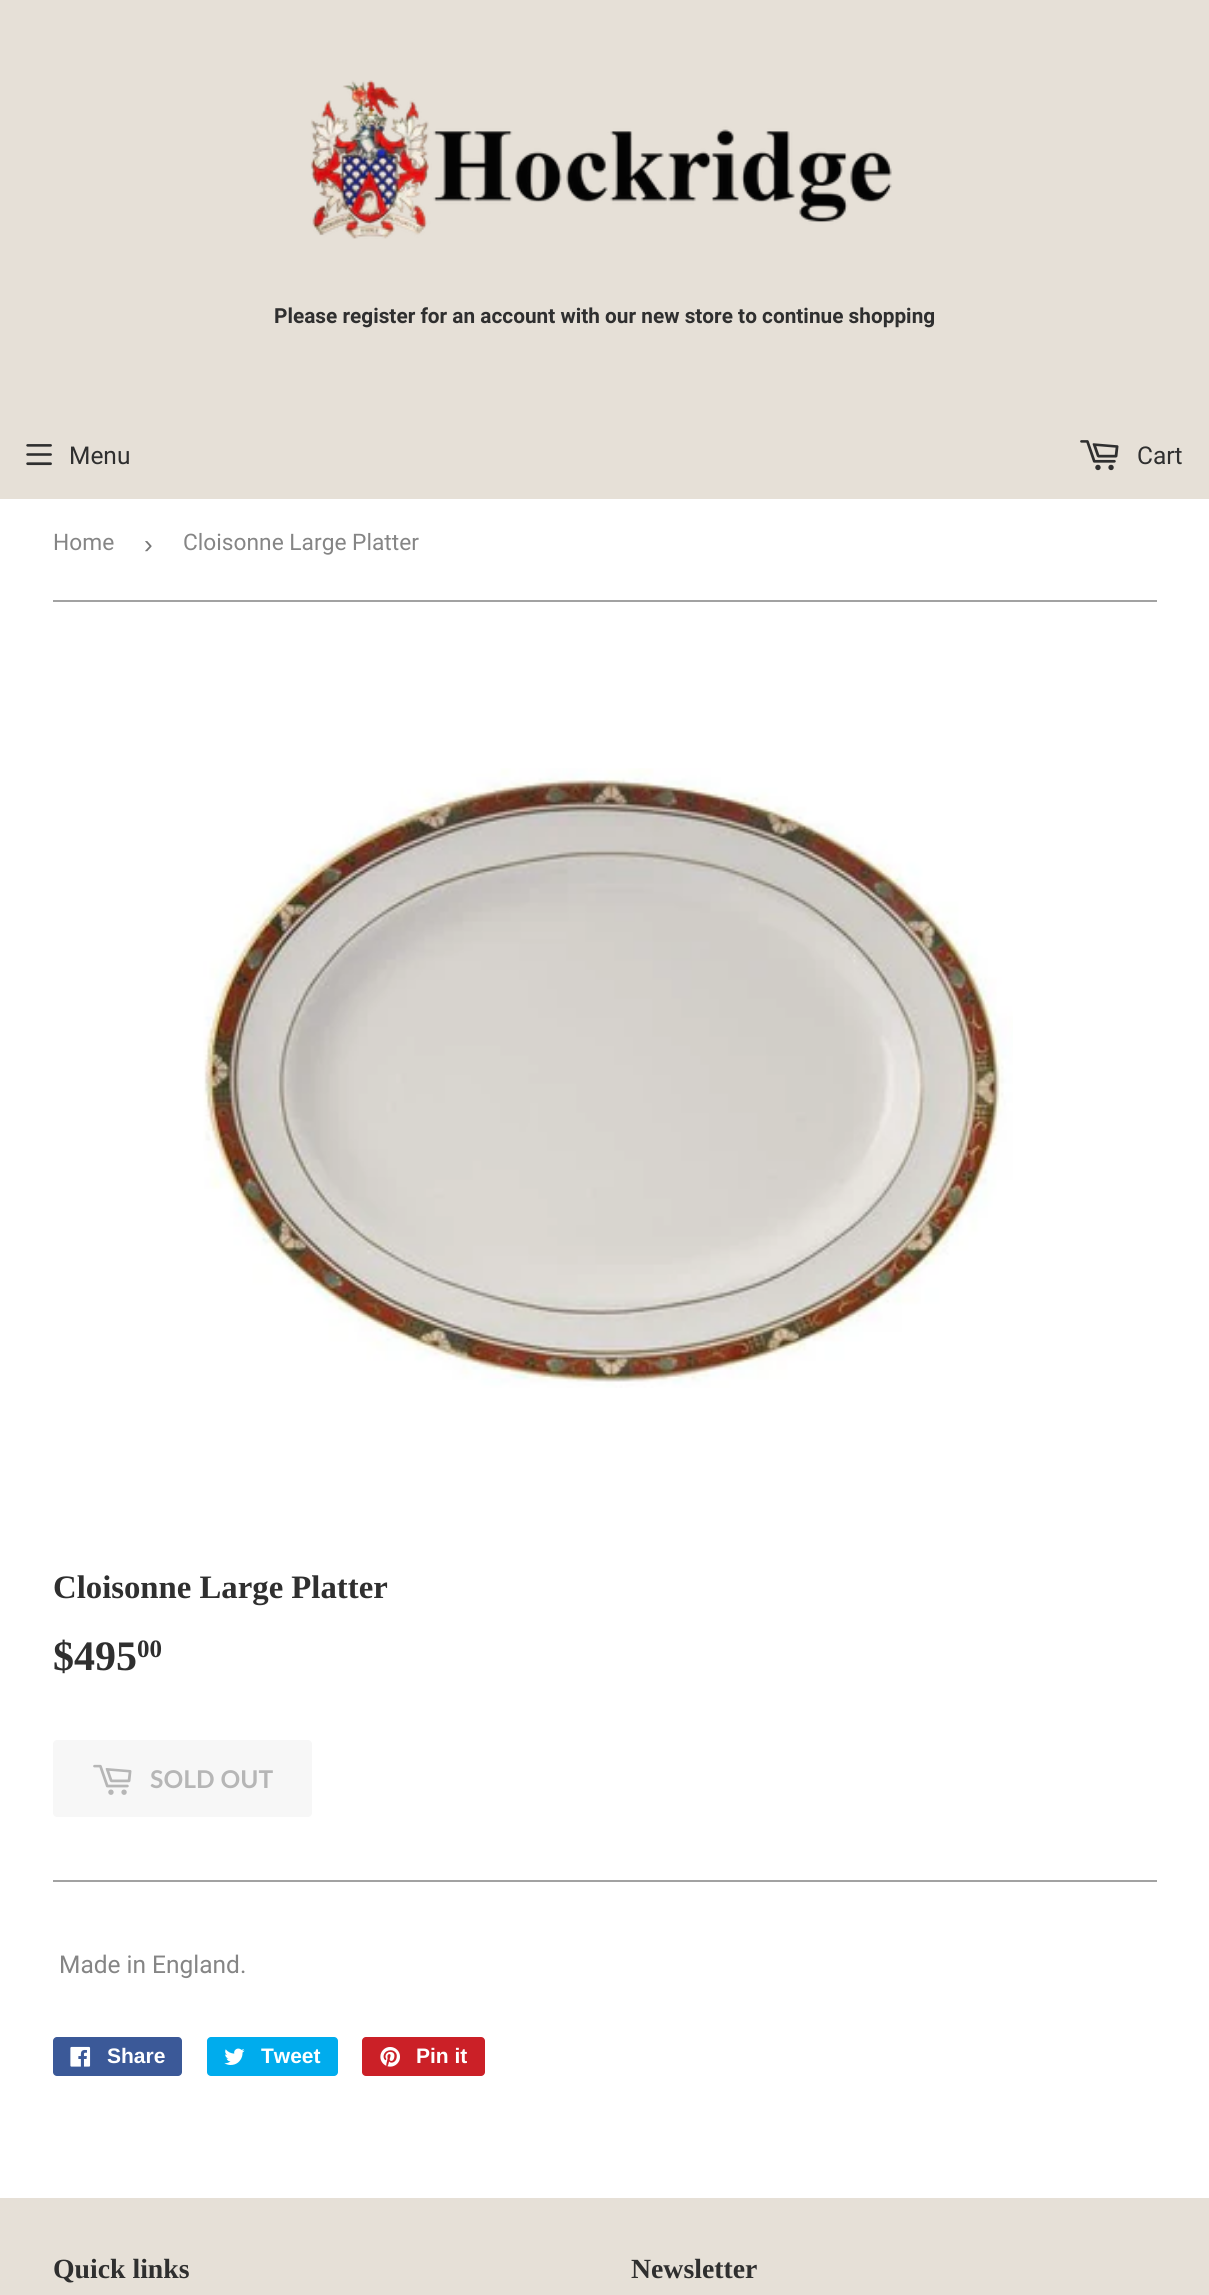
import math
import cairo

surface = cairo.ImageSurface(cairo.FORMAT_RGB24, 1209, 2295)
ctx = cairo.Context(surface)
options = cairo.FontOptions()
options.set_hint_metrics(cairo.HINT_METRICS_OFF)
options.set_hint_style(cairo.HINT_STYLE_NONE)
ctx.set_font_options(options)
ctx.set_miter_limit(4)


def round_rect(x, y, w, h, r):
    ctx.new_sub_path()
    for i, (u, v) in enumerate([(x + w - r, y + h - r), (x + r, y + h - r), (x + r, y + r), (x + w - r, y + r)]):
        ctx.arc(u, v, r, i * math.pi / 2, (i + 1) * math.pi / 2)
    ctx.close_path()


def picture(path, x, y, w, h):
    ctx.save()
    ctx.set_source_surface(cairo.ImageSurface.create_from_png(path), x, y)
    ctx.rectangle(x, y, w, h)
    ctx.fill()
    ctx.restore()


ctx.set_source_rgb(1, 1, 1)
ctx.paint()
ctx.set_source_rgb(0.902, 0.878, 0.843)
ctx.rectangle(0, 0, 1209, 499)
ctx.fill()
picture("img1.png", 310, 80, 582, 159)
ctx.select_font_face("Roboto", cairo.FONT_SLANT_NORMAL, cairo.FONT_WEIGHT_BOLD)
ctx.set_font_size(20.8)
ctx.set_source_rgb(0.184, 0.184, 0.184)
ctx.move_to(274, 323)
ctx.show_text("Please register for an account with our new store to continue shopping")
picture("img2.png", 26, 444, 26, 22)
ctx.select_font_face("Roboto")
ctx.set_font_size(24.5)
ctx.move_to(69, 464)
ctx.show_text("Menu")
picture("img3.png", 1080, 440, 39, 31)
ctx.move_to(1137, 464)
ctx.show_text("Cart")
ctx.set_source_rgb(0.635, 0.635, 0.635)
ctx.rectangle(53, 600, 1104, 2)
ctx.fill()
ctx.set_font_size(22.75)
ctx.set_source_rgb(0.522, 0.522, 0.522)
ctx.move_to(53, 550)
ctx.show_text("Home")
ctx.select_font_face("Liberation Sans")
ctx.set_font_size(26)
ctx.set_source_rgb(0.463, 0.463, 0.463)
ctx.move_to(144, 553)
ctx.show_text("›")
ctx.select_font_face("Roboto")
ctx.set_font_size(22.75)
ctx.set_source_rgb(0.522, 0.522, 0.522)
ctx.move_to(183, 550)
ctx.show_text("Cloisonne Large Platter")
picture("img4.png", 203, 768, 810, 620)
ctx.select_font_face("Liberation Serif", cairo.FONT_SLANT_NORMAL, cairo.FONT_WEIGHT_BOLD)
ctx.set_font_size(32.75)
ctx.set_source_rgb(0.184, 0.184, 0.184)
ctx.move_to(53, 1598)
ctx.show_text("Cloisonne Large Platter")
ctx.set_font_size(42)
ctx.move_to(53, 1670)
ctx.show_text("$495")
ctx.set_font_size(25)
ctx.move_to(137, 1657)
ctx.show_text("00")
ctx.set_source_rgb(0.965, 0.965, 0.965)
round_rect(53, 1740, 259, 77, 4)
ctx.fill()
picture("img5.png", 93, 1764, 39, 31)
ctx.select_font_face("Lato", cairo.FONT_SLANT_NORMAL, cairo.FONT_WEIGHT_BOLD)
ctx.set_font_size(24.5)
ctx.set_source_rgb(0.714, 0.714, 0.714)
ctx.move_to(150, 1788)
ctx.show_text("SOLD OUT")
ctx.set_source_rgb(0.635, 0.635, 0.635)
ctx.rectangle(53, 1880, 1104, 2)
ctx.fill()
ctx.select_font_face("Roboto")
ctx.set_source_rgb(0.522, 0.522, 0.522)
ctx.move_to(59, 1973)
ctx.show_text("Made in England.")
ctx.set_source_rgb(0.231, 0.349, 0.596)
round_rect(53, 2037, 129, 39, 4)
ctx.fill()
picture("img6.png", 70, 2046, 21, 21)
ctx.select_font_face("Liberation Sans", cairo.FONT_SLANT_NORMAL, cairo.FONT_WEIGHT_BOLD)
ctx.set_font_size(21)
ctx.set_source_rgb(1, 1, 1)
ctx.move_to(107, 2063)
ctx.show_text("Share")
ctx.set_source_rgb(0, 0.675, 0.929)
round_rect(207, 2037, 131, 39, 4)
ctx.fill()
picture("img7.png", 224, 2048, 21, 17)
ctx.set_source_rgb(1, 1, 1)
ctx.move_to(261, 2063)
ctx.show_text("Tweet")
ctx.set_source_rgb(0.796, 0.125, 0.153)
round_rect(362, 2037, 123, 39, 4)
ctx.fill()
picture("img8.png", 380, 2047, 20, 20)
ctx.set_source_rgb(1, 1, 1)
ctx.move_to(416, 2063)
ctx.show_text("Pin it")
ctx.set_source_rgb(0.902, 0.878, 0.843)
ctx.rectangle(0, 2198, 1209, 97)
ctx.fill()
ctx.select_font_face("Liberation Serif", cairo.FONT_SLANT_NORMAL, cairo.FONT_WEIGHT_BOLD)
ctx.set_font_size(27.75)
ctx.set_source_rgb(0.184, 0.184, 0.184)
ctx.move_to(53, 2278)
ctx.show_text("Quick links")
ctx.move_to(631, 2278)
ctx.show_text("Newsletter")
surface.write_to_png("page.png")
